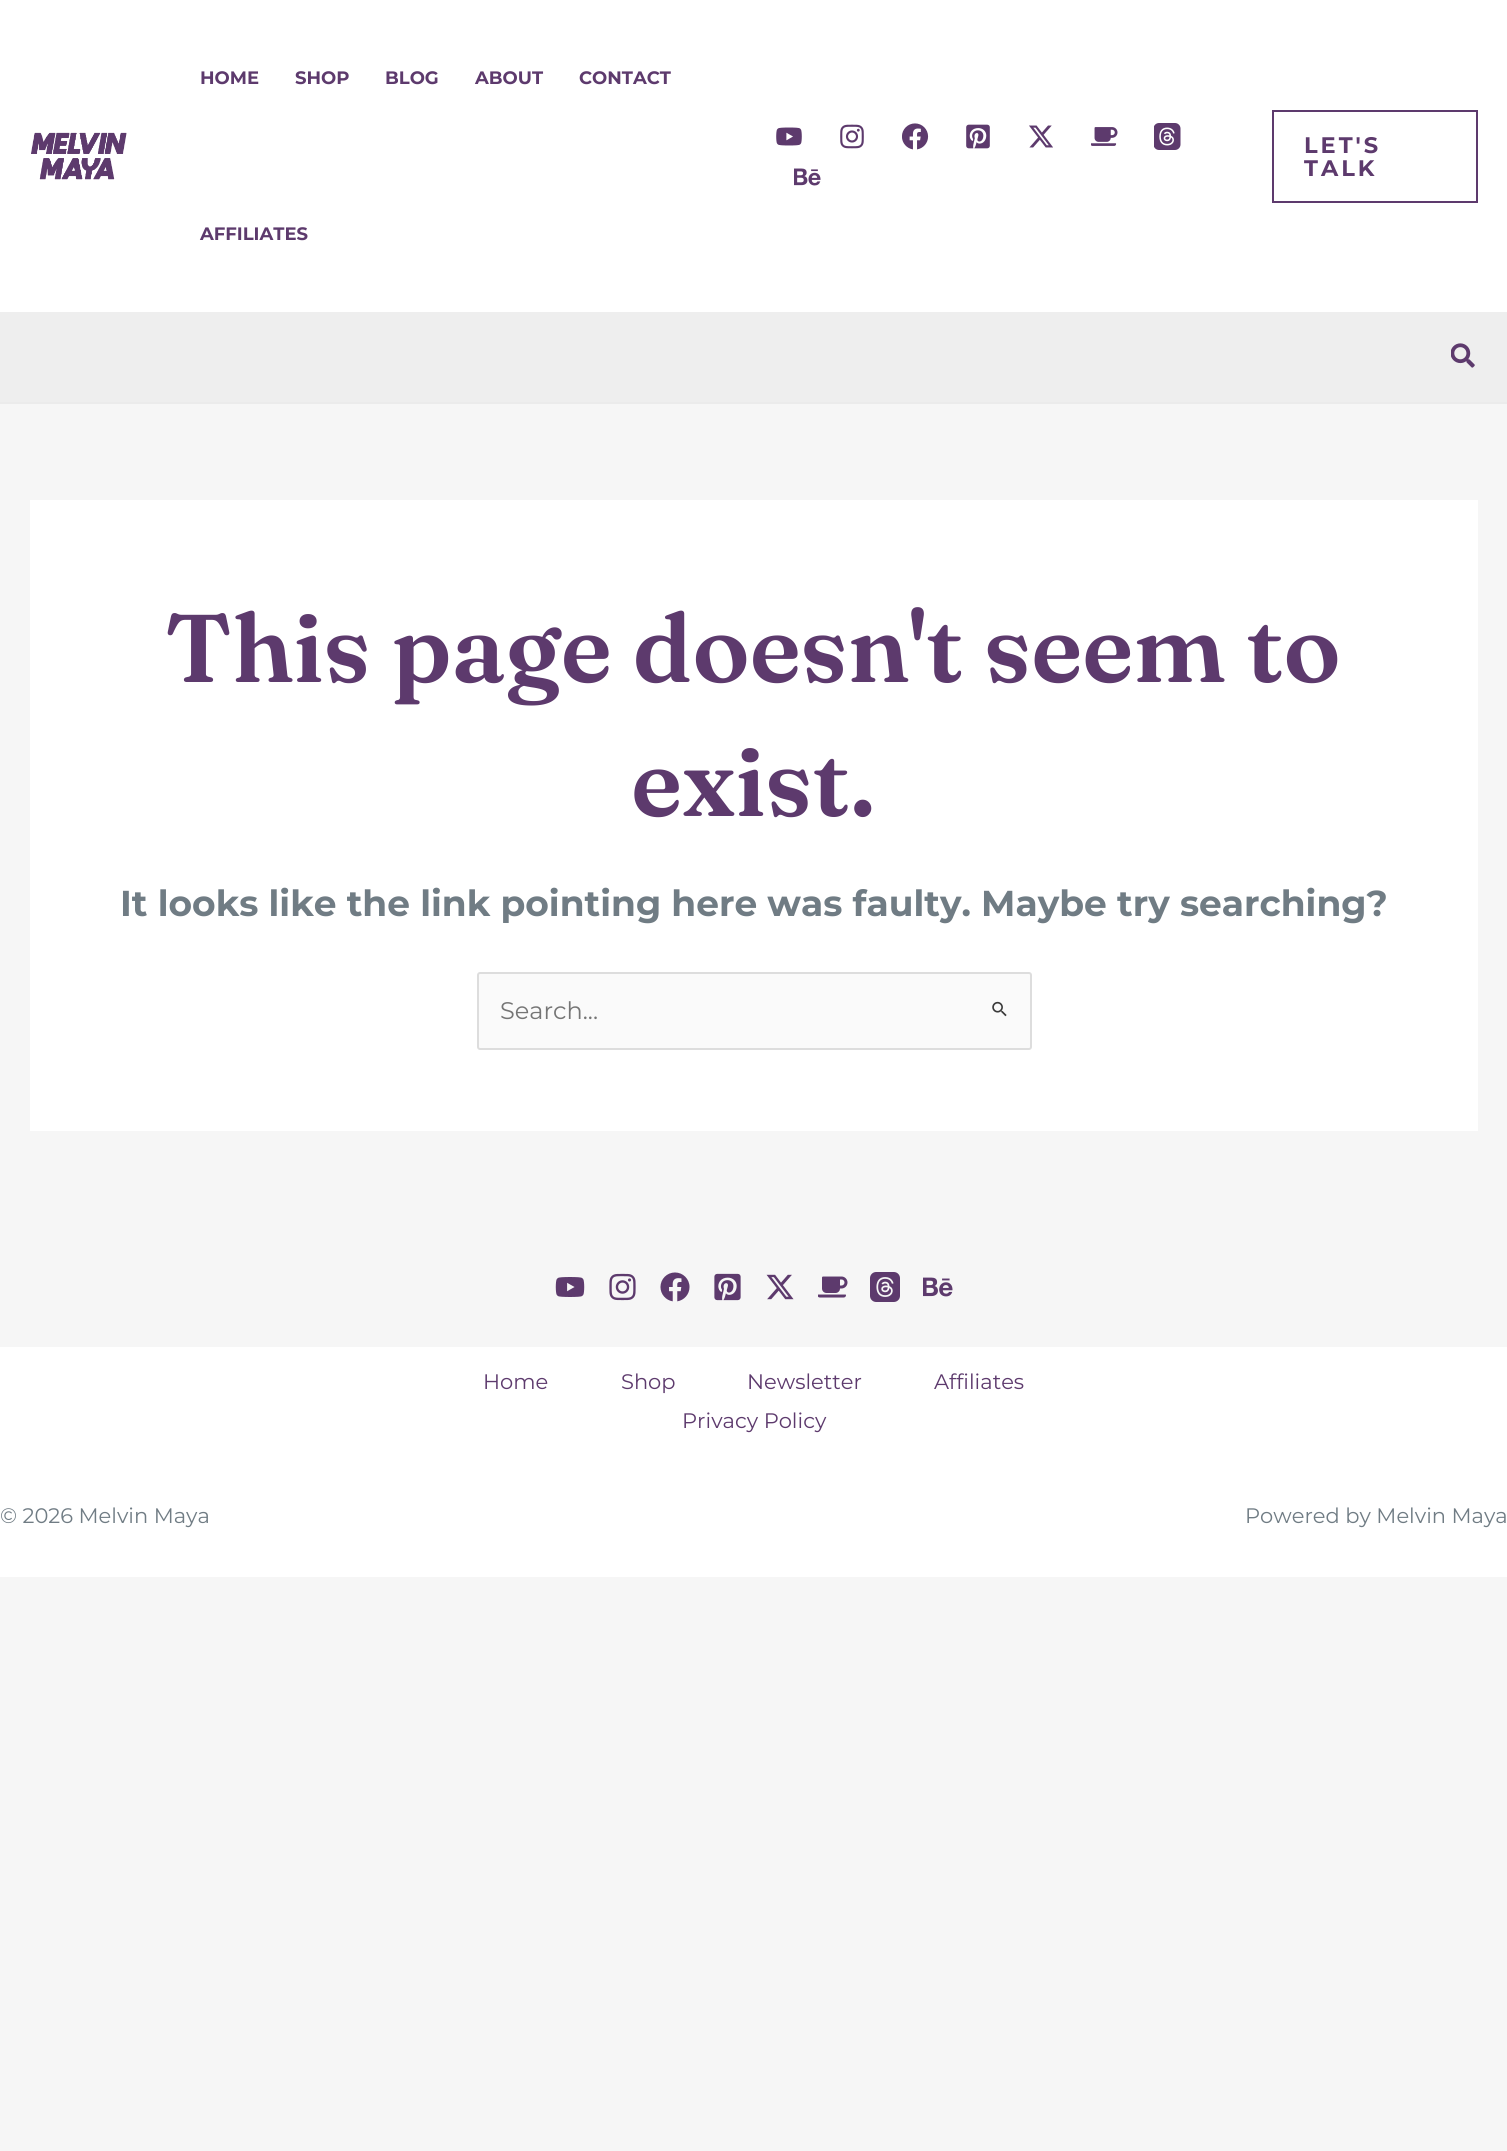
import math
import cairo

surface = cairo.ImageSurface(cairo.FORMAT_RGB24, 1507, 2151)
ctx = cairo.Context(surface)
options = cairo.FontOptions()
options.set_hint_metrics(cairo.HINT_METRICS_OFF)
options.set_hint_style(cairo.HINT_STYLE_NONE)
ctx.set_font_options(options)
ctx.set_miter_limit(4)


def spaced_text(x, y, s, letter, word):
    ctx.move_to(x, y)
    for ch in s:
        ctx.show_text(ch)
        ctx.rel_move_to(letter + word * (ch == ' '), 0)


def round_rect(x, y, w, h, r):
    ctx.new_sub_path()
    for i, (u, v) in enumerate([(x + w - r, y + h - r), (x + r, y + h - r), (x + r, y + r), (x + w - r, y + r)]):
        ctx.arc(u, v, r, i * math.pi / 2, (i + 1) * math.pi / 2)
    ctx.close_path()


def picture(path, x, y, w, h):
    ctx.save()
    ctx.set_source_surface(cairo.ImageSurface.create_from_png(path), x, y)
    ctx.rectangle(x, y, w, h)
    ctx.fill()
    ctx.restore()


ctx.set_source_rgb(0.961, 0.961, 0.961)
ctx.paint()
ctx.set_source_rgb(1, 1, 1)
ctx.rectangle(0, 0, 1507, 312)
ctx.fill()
picture("img1.png", 31, 132, 96, 48)
ctx.select_font_face("Montserrat", cairo.FONT_SLANT_NORMAL, cairo.FONT_WEIGHT_BOLD)
ctx.set_font_size(18)
ctx.set_source_rgb(0.365, 0.227, 0.427)
ctx.move_to(200, 84)
ctx.show_text("HOME")
ctx.move_to(295, 84)
ctx.show_text("SHOP")
ctx.move_to(385, 84)
ctx.show_text("BLOG")
ctx.move_to(475, 84)
ctx.show_text("ABOUT")
ctx.move_to(579, 84)
ctx.show_text("CONTACT")
ctx.move_to(200, 240)
ctx.show_text("AFFILIATES")
picture("img2.png", 776, 127, 26, 19)
picture("img3.png", 840, 124, 24, 25)
picture("img4.png", 902, 123, 27, 27)
picture("img5.png", 966, 124, 24, 25)
picture("img6.png", 1029, 125, 24, 23)
picture("img7.png", 1091, 127, 27, 19)
picture("img8.png", 1154, 123, 27, 27)
picture("img9.png", 794, 168, 27, 18)
ctx.rectangle(1273, 111, 204, 91)
ctx.stroke()
ctx.set_font_size(22.5)
spaced_text(1304, 153, "LET'S", 3, 0)
spaced_text(1304, 176, "TALK", 3, 0)
ctx.set_source_rgb(0.933, 0.933, 0.933)
ctx.rectangle(0, 312, 1507, 90)
ctx.fill()
ctx.set_source_rgb(0.918, 0.918, 0.918)
ctx.rectangle(0, 402, 1507, 2)
ctx.fill()
picture("img10.png", 1451, 343, 24, 25)
ctx.set_source_rgb(1, 1, 1)
ctx.rectangle(30, 500, 1448, 631)
ctx.fill()
ctx.select_font_face("Fraunces SemiBold")
ctx.set_font_size(96)
ctx.set_source_rgb(0.365, 0.227, 0.427)
ctx.move_to(165, 682)
ctx.show_text("This page doesn't seem to")
ctx.move_to(631, 816)
ctx.show_text("exist.")
ctx.select_font_face("Montserrat", cairo.FONT_SLANT_NORMAL, cairo.FONT_WEIGHT_BOLD)
ctx.set_font_size(36)
ctx.set_source_rgb(0.439, 0.486, 0.518)
ctx.move_to(120, 916)
ctx.show_text("It looks like the link pointing here was faulty. Maybe try searching?")
ctx.set_source_rgb(0.98, 0.98, 0.98)
round_rect(478, 973, 553, 76, 2)
ctx.fill_preserve()
ctx.set_source_rgb(0.867, 0.867, 0.867)
ctx.stroke()
ctx.select_font_face("Montserrat")
ctx.set_font_size(24)
ctx.set_source_rgb(0.459, 0.459, 0.459)
ctx.move_to(500, 1019)
ctx.show_text("Search...")
picture("img11.png", 992, 1001, 15, 16)
picture("img12.png", 555, 1277, 30, 20)
picture("img13.png", 609, 1273, 27, 28)
picture("img14.png", 660, 1272, 30, 30)
picture("img15.png", 714, 1273, 27, 28)
picture("img16.png", 766, 1274, 28, 26)
picture("img17.png", 818, 1276, 30, 22)
picture("img18.png", 870, 1272, 30, 30)
picture("img19.png", 923, 1277, 30, 20)
ctx.set_source_rgb(1, 1, 1)
ctx.rectangle(0, 1347, 1507, 230)
ctx.fill()
ctx.set_font_size(21)
ctx.set_source_rgb(0.365, 0.227, 0.427)
ctx.move_to(483, 1389)
ctx.show_text("Home")
ctx.move_to(621, 1389)
ctx.show_text("Shop")
ctx.move_to(747, 1389)
ctx.show_text("Newsletter")
ctx.move_to(934, 1389)
ctx.show_text("Affiliates")
ctx.move_to(682, 1428)
ctx.show_text("Privacy Policy")
ctx.set_source_rgb(0.439, 0.486, 0.518)
ctx.move_to(0, 1523)
ctx.show_text("© 2026 Melvin Maya")
ctx.move_to(1245, 1523)
ctx.show_text("Powered by Melvin Maya")
surface.write_to_png("page.png")
